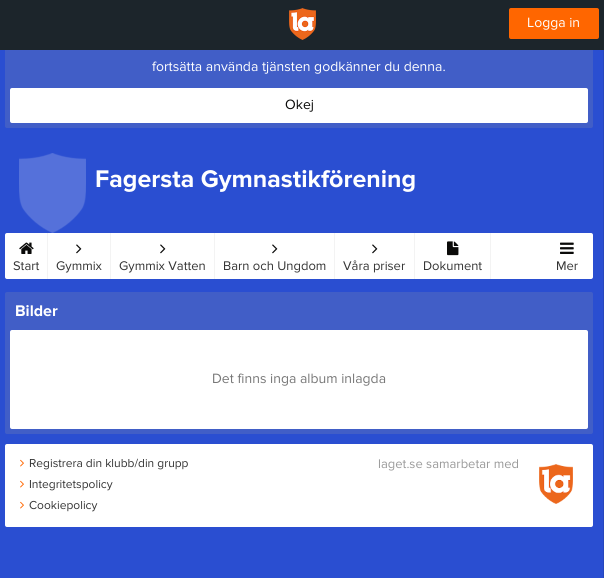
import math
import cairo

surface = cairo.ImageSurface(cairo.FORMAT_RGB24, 604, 578)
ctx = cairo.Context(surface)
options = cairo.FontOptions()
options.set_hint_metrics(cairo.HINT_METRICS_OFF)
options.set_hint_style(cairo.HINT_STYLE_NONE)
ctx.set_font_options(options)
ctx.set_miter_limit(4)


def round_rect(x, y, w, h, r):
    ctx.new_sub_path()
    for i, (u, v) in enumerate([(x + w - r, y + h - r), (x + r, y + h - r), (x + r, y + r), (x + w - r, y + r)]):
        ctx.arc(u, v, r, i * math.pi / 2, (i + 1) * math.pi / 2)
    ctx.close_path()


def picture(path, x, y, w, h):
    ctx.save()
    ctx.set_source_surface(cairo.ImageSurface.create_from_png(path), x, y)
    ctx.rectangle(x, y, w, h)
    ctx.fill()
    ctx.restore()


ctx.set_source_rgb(0.165, 0.306, 0.82)
ctx.paint()
ctx.set_source_rgb(0.255, 0.369, 0.78)
round_rect(5, 29, 588, 99, 2)
ctx.fill()
ctx.set_source_rgb(0.149, 0.275, 0.737)
ctx.rectangle(603, 44, 1, 534)
ctx.fill()
ctx.set_source_rgb(0.11, 0.145, 0.169)
ctx.rectangle(0, 0, 604, 50)
ctx.fill()
picture("img1.png", 289, 8, 27, 32)
ctx.set_source_rgb(1, 0.4, 0)
round_rect(509, 8, 90, 31, 2)
ctx.fill()
ctx.select_font_face("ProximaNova")
ctx.set_font_size(14)
ctx.set_source_rgb(1, 1, 1)
ctx.move_to(527, 27)
ctx.show_text("Logga in")
ctx.move_to(152, 71)
ctx.show_text("fortsätta använda tjänsten godkänner du denna.")
round_rect(10, 88, 578, 35, 2)
ctx.fill()
ctx.set_source_rgb(0.039, 0.039, 0.035)
ctx.move_to(285, 109)
ctx.show_text("Okej")
picture("img2.png", 19, 153, 67, 80)
ctx.select_font_face("ProximaNova", cairo.FONT_SLANT_NORMAL, cairo.FONT_WEIGHT_BOLD)
ctx.set_font_size(25)
ctx.set_source_rgb(1, 1, 1)
ctx.move_to(95, 187)
ctx.show_text("Fagersta Gymnastikförening")
round_rect(5, 233, 588, 46, 2)
ctx.fill()
ctx.set_source_rgb(0.953, 0.953, 0.953)
ctx.rectangle(47, 233, 1, 46)
ctx.fill()
picture("img3.png", 19, 242, 15, 12)
ctx.select_font_face("ProximaNova")
ctx.set_font_size(13)
ctx.set_source_rgb(0.2, 0.2, 0.2)
ctx.move_to(13, 270)
ctx.show_text("Start")
ctx.set_source_rgb(0.953, 0.953, 0.953)
ctx.rectangle(110, 233, 1, 46)
ctx.fill()
picture("img4.png", 76, 244, 6, 10)
ctx.set_source_rgb(0.2, 0.2, 0.2)
ctx.move_to(56, 270)
ctx.show_text("Gymmix")
ctx.set_source_rgb(0.953, 0.953, 0.953)
ctx.rectangle(214, 233, 1, 46)
ctx.fill()
picture("img4.png", 160, 244, 6, 10)
ctx.set_source_rgb(0.2, 0.2, 0.2)
ctx.move_to(119, 270)
ctx.show_text("Gymmix Vatten")
ctx.set_source_rgb(0.953, 0.953, 0.953)
ctx.rectangle(334, 233, 1, 46)
ctx.fill()
picture("img4.png", 272, 244, 6, 10)
ctx.set_source_rgb(0.2, 0.2, 0.2)
ctx.move_to(223, 270)
ctx.show_text("Barn och Ungdom")
ctx.set_source_rgb(0.953, 0.953, 0.953)
ctx.rectangle(414, 233, 1, 46)
ctx.fill()
picture("img4.png", 372, 244, 6, 10)
ctx.set_source_rgb(0.2, 0.2, 0.2)
ctx.move_to(343, 270)
ctx.show_text("Våra priser")
ctx.set_source_rgb(0.953, 0.953, 0.953)
ctx.rectangle(490, 233, 1, 46)
ctx.fill()
picture("img5.png", 447, 241, 12, 15)
ctx.set_source_rgb(0.2, 0.2, 0.2)
ctx.move_to(423, 270)
ctx.show_text("Dokument")
picture("img6.png", 560, 242, 14, 12)
ctx.move_to(556, 270)
ctx.show_text("Mer")
ctx.set_source_rgb(0.255, 0.369, 0.78)
round_rect(5, 292, 588, 142, 2)
ctx.fill()
ctx.select_font_face("ProximaNova", cairo.FONT_SLANT_NORMAL, cairo.FONT_WEIGHT_BOLD)
ctx.set_font_size(16)
ctx.set_source_rgb(1, 1, 1)
ctx.move_to(15, 316)
ctx.show_text("Bilder")
round_rect(10, 330, 578, 99, 2)
ctx.fill()
ctx.select_font_face("ProximaNova")
ctx.set_font_size(14)
ctx.set_source_rgb(0.467, 0.467, 0.467)
ctx.move_to(212, 383)
ctx.show_text("Det finns inga album inlagda")
ctx.set_source_rgb(1, 1, 1)
round_rect(5, 444, 588, 83, 2)
ctx.fill()
picture("img7.png", 20, 459, 4, 8)
ctx.set_font_size(12)
ctx.set_source_rgb(0.2, 0.2, 0.2)
ctx.move_to(29, 467)
ctx.show_text("Registrera din klubb/din grupp")
picture("img7.png", 20, 480, 4, 8)
ctx.move_to(29, 488)
ctx.show_text("Integritetspolicy")
picture("img7.png", 20, 501, 4, 8)
ctx.move_to(29, 509)
ctx.show_text("Cookiepolicy")
ctx.set_font_size(13)
ctx.set_source_rgb(0.6, 0.6, 0.6)
ctx.move_to(378, 468)
ctx.show_text("laget.se samarbetar med")
picture("img8.png", 539, 464, 34, 40)
surface.write_to_png("page.png")
